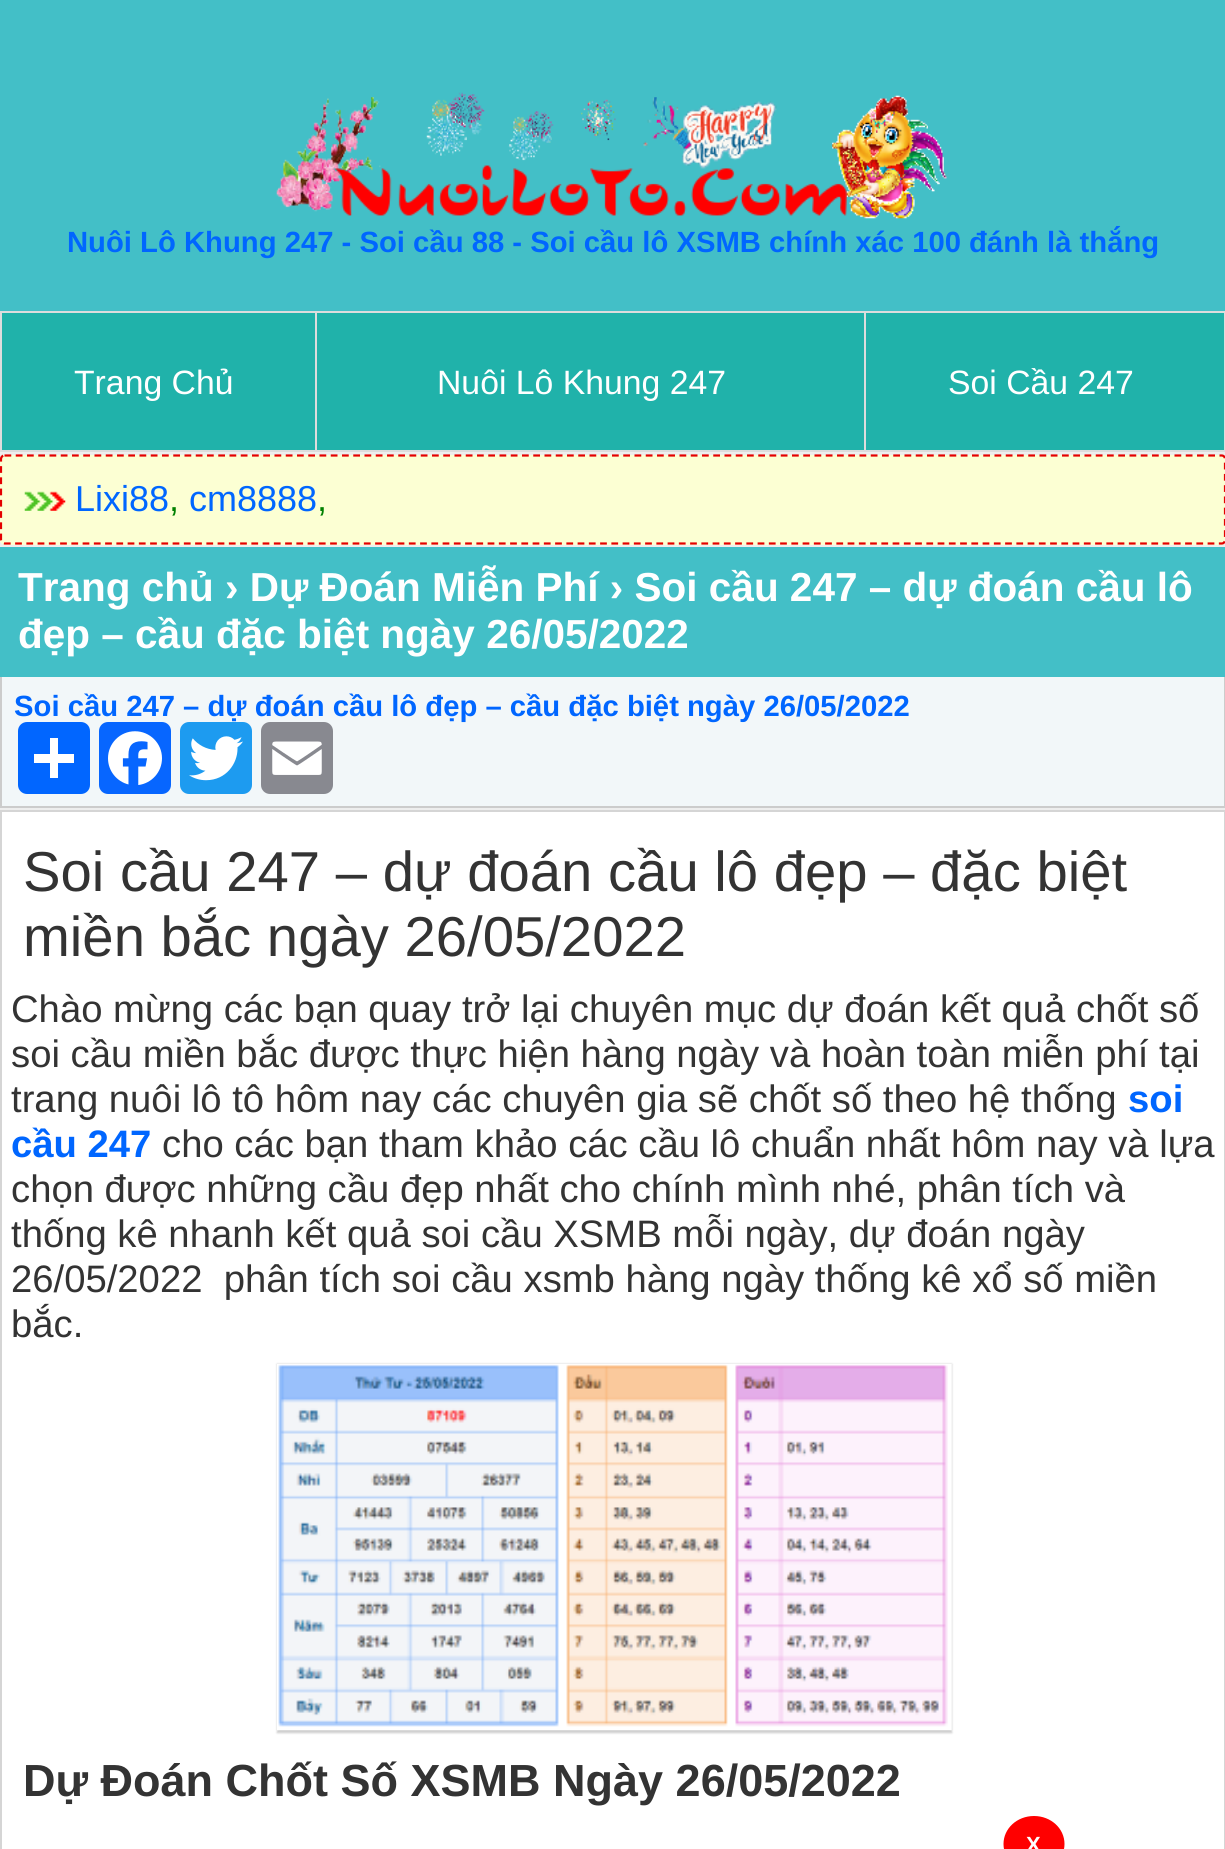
import math
import cairo

surface = cairo.ImageSurface(cairo.FORMAT_RGB24, 1225, 1849)
ctx = cairo.Context(surface)
options = cairo.FontOptions()
options.set_hint_metrics(cairo.HINT_METRICS_OFF)
options.set_hint_style(cairo.HINT_STYLE_NONE)
ctx.set_font_options(options)
ctx.set_miter_limit(4)


def round_rect(x, y, w, h, r):
    ctx.new_sub_path()
    for i, (u, v) in enumerate([(x + w - r, y + h - r), (x + r, y + h - r), (x + r, y + r), (x + w - r, y + r)]):
        ctx.arc(u, v, r, i * math.pi / 2, (i + 1) * math.pi / 2)
    ctx.close_path()


def shadow(x, y, w, h, r, blur, alpha):
    ctx.push_group_with_content(cairo.CONTENT_ALPHA)
    ctx.set_operator(cairo.OPERATOR_SOURCE)
    for i in range(15, -16, -2):
        e = blur * i / 6
        if min(w, h) + 2 * e > 0:
            ctx.set_source_rgba(0, 0, 0, alpha * math.erfc((i - 1) / 8.5) / 2)
            round_rect(x - e, y - e, w + 2 * e, h + 2 * e, max(0, min(r + e + blur * .6, min(w, h) / 2 + e)))
            ctx.fill()
    ctx.mask(ctx.pop_group())


def picture(path, x, y, w, h):
    ctx.save()
    ctx.set_source_surface(cairo.ImageSurface.create_from_png(path), x, y)
    ctx.rectangle(x, y, w, h)
    ctx.fill()
    ctx.restore()


ctx.set_source_rgb(0.933, 0.933, 0.933)
ctx.paint()
ctx.set_source_rgb(0.263, 0.749, 0.78)
ctx.rectangle(0, 0, 1225, 311)
ctx.fill()
picture("img1.png", 276, 92, 671, 127)
ctx.select_font_face("Liberation Sans", cairo.FONT_SLANT_NORMAL, cairo.FONT_WEIGHT_BOLD)
ctx.set_font_size(29.25)
ctx.set_source_rgb(0, 0.4, 1)
ctx.move_to(67, 252)
ctx.show_text("Nuôi Lô Khung 247 - Soi cầu 88 - Soi cầu lô XSMB chính xác 100 đánh là thắng")
ctx.set_source_rgb(0.125, 0.698, 0.667)
ctx.rectangle(2, 313, 313, 137)
ctx.fill()
ctx.set_source_rgb(0.867, 0.867, 0.867)
ctx.rectangle(864, 311, 361, 2)
ctx.fill()
ctx.rectangle(1224, 311, 1, 141)
ctx.fill()
ctx.rectangle(864, 450, 361, 2)
ctx.fill()
ctx.rectangle(864, 311, 2, 141)
ctx.fill()
ctx.rectangle(315, 311, 551, 2)
ctx.fill()
ctx.rectangle(315, 450, 551, 2)
ctx.fill()
ctx.rectangle(315, 311, 2, 141)
ctx.fill()
ctx.rectangle(0, 311, 317, 2)
ctx.fill()
ctx.rectangle(0, 450, 317, 2)
ctx.fill()
ctx.rectangle(0, 311, 2, 141)
ctx.fill()
ctx.select_font_face("Liberation Sans")
ctx.set_font_size(33.75)
ctx.set_source_rgb(1, 1, 1)
ctx.move_to(74, 394)
ctx.show_text("Trang Chủ")
ctx.set_source_rgb(0.125, 0.698, 0.667)
ctx.rectangle(317, 313, 547, 137)
ctx.fill()
ctx.set_source_rgb(1, 1, 1)
ctx.move_to(437, 394)
ctx.show_text("Nuôi Lô Khung 247")
ctx.set_source_rgb(0.125, 0.698, 0.667)
ctx.rectangle(866, 313, 358, 137)
ctx.fill()
ctx.set_source_rgb(1, 1, 1)
ctx.move_to(948, 394)
ctx.show_text("Soi Cầu 247")
ctx.set_source_rgb(0.988, 1, 0.827)
round_rect(0, 455, 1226, 90, 5)
ctx.fill()
ctx.new_path()
ctx.move_to(4.5, 455.5)
ctx.line_to(1222, 455.5)
ctx.curve_to(1223.5, 455.5, 1225, 457, 1225, 459)
ctx.line_to(1225, 540)
ctx.curve_to(1225, 542, 1223.5, 543.5, 1222, 543.5)
ctx.line_to(4.5, 543.5)
ctx.curve_to(2.5, 543.5, 1, 542, 1, 540)
ctx.line_to(1, 459)
ctx.curve_to(1, 457, 2.5, 455.5, 4.5, 455.5)
ctx.close_path()
ctx.set_source_rgb(0.894, 0, 0)
ctx.set_line_width(2.2)
ctx.set_dash([6.75, 4.5])
ctx.stroke()
picture("img2.png", 24, 491, 42, 20)
ctx.set_font_size(36)
ctx.set_source_rgb(0, 0.4, 1)
ctx.move_to(75, 511)
ctx.show_text("Lixi88")
ctx.set_source_rgb(0, 0.502, 0)
ctx.move_to(169, 511)
ctx.show_text(",")
ctx.set_source_rgb(0, 0.4, 1)
ctx.move_to(189, 511)
ctx.show_text("cm8888")
ctx.set_source_rgb(0, 0.502, 0)
ctx.move_to(317, 511)
ctx.show_text(",")
ctx.set_source_rgb(0.263, 0.749, 0.78)
ctx.rectangle(0, 547, 1225, 130)
ctx.fill()
ctx.select_font_face("Liberation Sans", cairo.FONT_SLANT_NORMAL, cairo.FONT_WEIGHT_BOLD)
ctx.set_font_size(40.5)
ctx.set_source_rgb(1, 1, 1)
ctx.move_to(18, 601)
ctx.show_text("Trang chủ › Dự Đoán Miễn Phí › Soi cầu 247 – dự đoán cầu lô")
ctx.move_to(18, 648)
ctx.show_text("đẹp – cầu đặc biệt ngày 26/05/2022")
ctx.set_source_rgb(0.949, 0.965, 0.973)
ctx.rectangle(2, 677, 1222, 129)
ctx.fill()
ctx.set_source_rgb(0.8, 0.8, 0.8)
ctx.rectangle(1224, 677, 1, 131)
ctx.fill()
ctx.rectangle(0, 806, 1225, 2)
ctx.fill()
ctx.rectangle(0, 677, 2, 131)
ctx.fill()
ctx.set_font_size(29.25)
ctx.set_source_rgb(0, 0.4, 1)
ctx.move_to(14, 716)
ctx.show_text("Soi cầu 247 – dự đoán cầu lô đẹp – cầu đặc biệt ngày 26/05/2022")
ctx.set_source_rgb(0.004, 0.4, 1)
round_rect(18, 722, 72, 72, 9)
ctx.fill()
ctx.set_source_rgb(1, 1, 1)
ctx.rectangle(50, 738, 8, 40)
ctx.fill()
ctx.rectangle(34, 754, 40, 9)
ctx.fill()
ctx.set_source_rgb(0.031, 0.4, 1)
round_rect(99, 722, 72, 72, 9)
ctx.fill()
picture("img3.png", 108, 731, 54, 54)
ctx.set_source_rgb(0.114, 0.608, 0.941)
round_rect(180, 722, 72, 72, 9)
ctx.fill()
picture("img4.png", 189, 736, 54, 45)
ctx.set_source_rgb(0.533, 0.537, 0.565)
round_rect(261, 722, 72, 72, 9)
ctx.fill()
picture("img5.png", 272, 741, 50, 34)
ctx.set_source_rgb(1, 1, 1)
ctx.rectangle(1, 811, 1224, 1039)
ctx.fill_preserve()
ctx.set_source_rgb(0.835, 0.835, 0.835)
ctx.set_line_width(2)
ctx.set_dash([])
ctx.stroke()
ctx.select_font_face("Liberation Sans")
ctx.set_font_size(56.25)
ctx.set_source_rgb(0.2, 0.2, 0.2)
ctx.move_to(23, 891)
ctx.show_text("Soi cầu 247 – dự đoán cầu lô đẹp – đặc biệt")
ctx.move_to(23, 956)
ctx.show_text("miền bắc ngày 26/05/2022")
ctx.set_font_size(38.25)
ctx.move_to(11, 1022)
ctx.show_text("Chào mừng các bạn quay trở lại chuyên mục dự đoán kết quả chốt số")
ctx.move_to(11, 1067)
ctx.show_text("soi cầu miền bắc được thực hiện hàng ngày và hoàn toàn miễn phí tại")
ctx.move_to(11, 1112)
ctx.show_text("trang nuôi lô tô hôm nay các chuyên gia sẽ chốt số theo hệ thống")
ctx.select_font_face("Liberation Sans", cairo.FONT_SLANT_NORMAL, cairo.FONT_WEIGHT_BOLD)
ctx.set_source_rgb(0, 0.4, 1)
ctx.move_to(1128, 1112)
ctx.show_text("soi")
ctx.move_to(11, 1157)
ctx.show_text("cầu 247")
ctx.select_font_face("Liberation Sans")
ctx.set_source_rgb(0.2, 0.2, 0.2)
ctx.move_to(162, 1157)
ctx.show_text("cho các bạn tham khảo các cầu lô chuẩn nhất hôm nay và lựa")
ctx.move_to(11, 1202)
ctx.show_text("chọn được những cầu đẹp nhất cho chính mình nhé, phân tích và")
ctx.move_to(11, 1247)
ctx.show_text("thống kê nhanh kết quả soi cầu XSMB mỗi ngày, dự đoán ngày")
ctx.move_to(11, 1292)
ctx.show_text("26/05/2022  phân tích soi cầu xsmb hàng ngày thống kê xổ số miền")
ctx.move_to(11, 1337)
ctx.show_text("bắc.")
ctx.set_source_rgb(0, 0, 0)
shadow(277, 1364, 675, 369, 0, 1, 0.2)
picture("img6.png", 277, 1364, 675, 367)
ctx.select_font_face("Liberation Sans", cairo.FONT_SLANT_NORMAL, cairo.FONT_WEIGHT_BOLD)
ctx.set_font_size(45)
ctx.set_source_rgb(0.2, 0.2, 0.2)
ctx.move_to(23, 1796)
ctx.show_text("Dự Đoán Chốt Số XSMB Ngày 26/05/2022")
ctx.set_source_rgb(1, 0, 0)
ctx.new_path()
ctx.move_to(1034, 1816)
ctx.curve_to(1051, 1816, 1064.5, 1828.5, 1064.5, 1844)
ctx.curve_to(1064.5, 1859.5, 1051, 1872, 1034, 1872)
ctx.curve_to(1017, 1872, 1003.5, 1859.5, 1003.5, 1844)
ctx.curve_to(1003.5, 1828.5, 1017, 1816, 1034, 1816)
ctx.close_path()
ctx.fill()
ctx.set_font_size(22)
ctx.set_source_rgb(1, 1, 1)
ctx.move_to(1026, 1852)
ctx.show_text("X")
surface.write_to_png("page.png")
